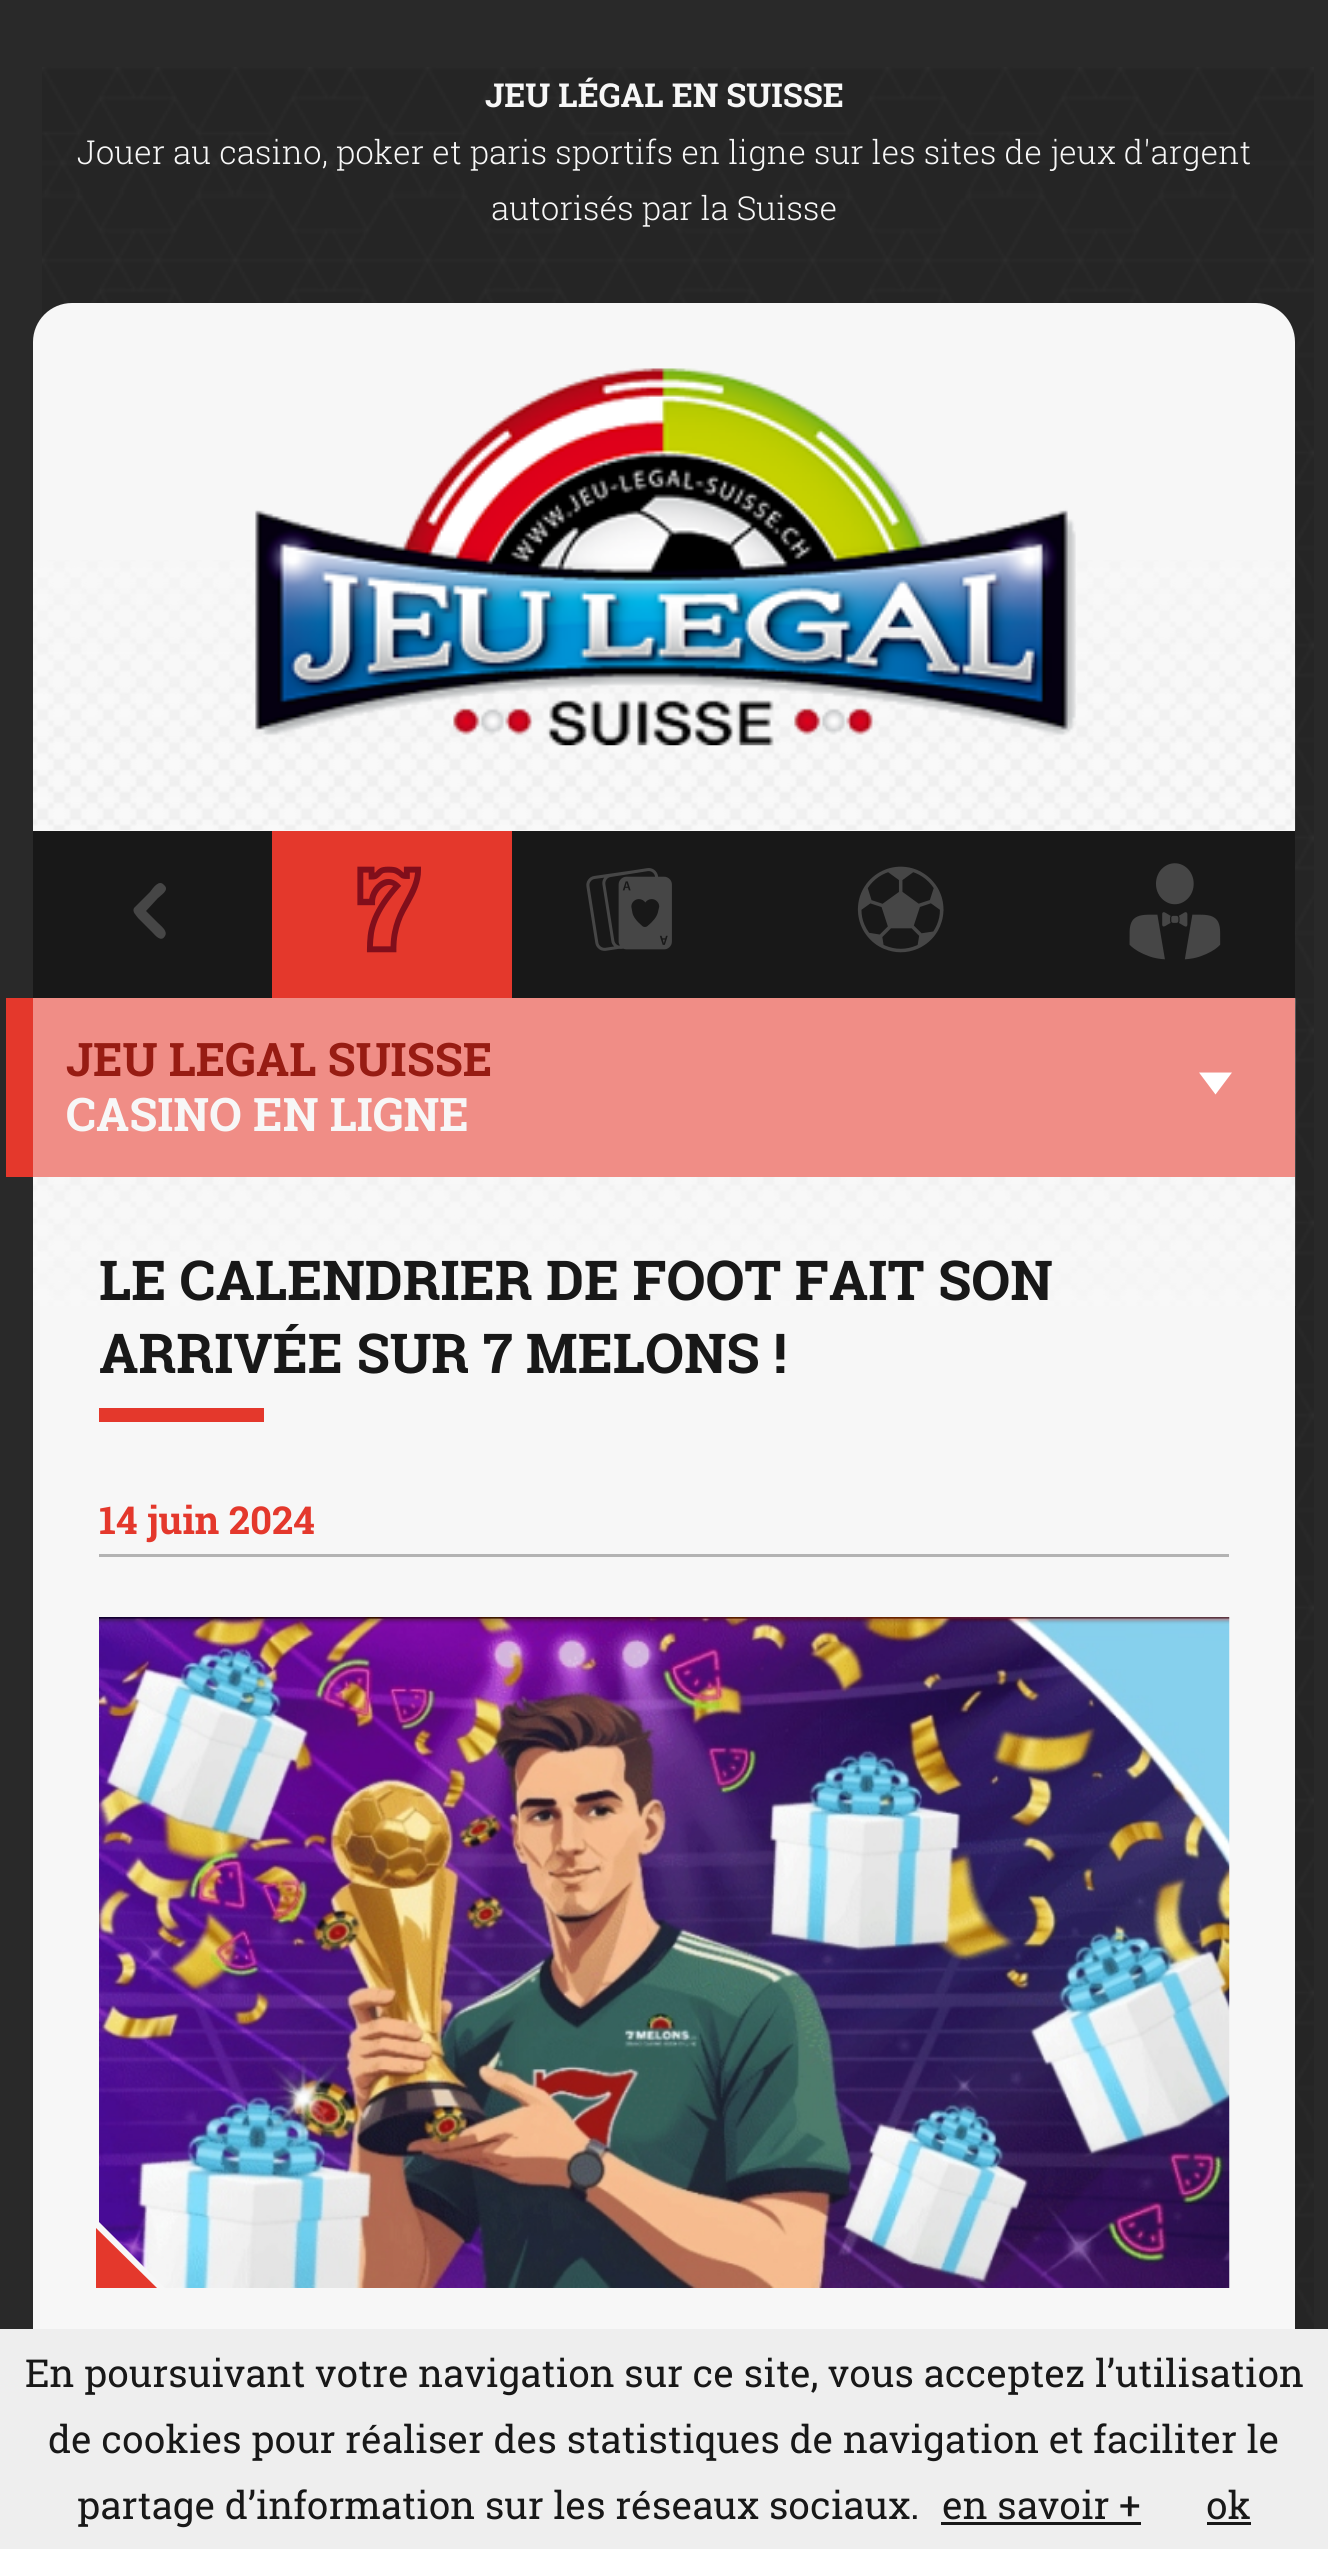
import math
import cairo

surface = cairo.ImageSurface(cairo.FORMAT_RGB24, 1328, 2549)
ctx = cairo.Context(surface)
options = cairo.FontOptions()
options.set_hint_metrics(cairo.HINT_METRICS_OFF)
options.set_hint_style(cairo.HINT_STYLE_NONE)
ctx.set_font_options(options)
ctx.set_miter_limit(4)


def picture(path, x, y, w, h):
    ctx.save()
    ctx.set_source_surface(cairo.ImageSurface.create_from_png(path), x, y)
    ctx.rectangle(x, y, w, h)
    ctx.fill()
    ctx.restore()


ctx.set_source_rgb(0.161, 0.161, 0.161)
ctx.paint()
picture("img1.png", 42, 67, 1272, 2262)
ctx.select_font_face("Roboto Slab", cairo.FONT_SLANT_NORMAL, cairo.FONT_WEIGHT_BOLD)
ctx.set_font_size(33)
ctx.set_source_rgb(0.965, 0.965, 0.965)
ctx.move_to(485, 107)
ctx.show_text("JEU LÉGAL EN SUISSE")
ctx.select_font_face("Roboto Slab Light")
ctx.move_to(77, 164)
ctx.show_text("Jouer au casino, poker et paris sportifs en ligne sur les sites de jeux d'argent")
ctx.move_to(491, 220)
ctx.show_text("autorisés par la Suisse")
ctx.new_path()
ctx.move_to(72, 303)
ctx.line_to(1256, 303)
ctx.curve_to(1277.5, 303, 1295, 320.5, 1295, 342)
ctx.line_to(1295, 831)
ctx.line_to(33, 831)
ctx.line_to(33, 342)
ctx.curve_to(33, 320.5, 50.5, 303, 72, 303)
ctx.close_path()
ctx.fill()
picture("img2.png", 33, 560, 1263, 270)
picture("img3.png", 255, 368, 821, 378)
ctx.set_source_rgb(0.094, 0.094, 0.094)
ctx.rectangle(33, 831, 239, 167)
ctx.fill()
ctx.set_source_rgb(0.275, 0.275, 0.275)
ctx.new_path()
ctx.move_to(164, 885)
ctx.curve_to(170, 890, 161, 895, 158, 898)
ctx.line_to(146, 911)
ctx.line_to(158, 923)
ctx.curve_to(161, 926, 168, 931, 165, 936)
ctx.curve_to(161, 943, 155, 935, 152, 932)
ctx.line_to(138, 918)
ctx.curve_to(136, 915, 132, 912, 134, 908)
ctx.line_to(150, 892)
ctx.curve_to(153, 888, 159, 879, 164, 885)
ctx.close_path()
ctx.fill()
ctx.set_source_rgb(0.894, 0.22, 0.173)
ctx.rectangle(272, 831, 240, 167)
ctx.fill()
picture("img4.png", 357, 866, 64, 87)
ctx.set_source_rgb(0.094, 0.094, 0.094)
ctx.rectangle(512, 831, 783, 167)
ctx.fill()
picture("img5.png", 586, 868, 86, 83)
picture("img6.png", 857, 866, 87, 87)
picture("img7.png", 1129, 863, 92, 97)
ctx.set_source_rgb(0.965, 0.965, 0.965)
ctx.rectangle(33, 1177, 1262, 1152)
ctx.fill()
picture("img8.png", 33, 998, 1263, 308)
ctx.set_source_rgb(0.941, 0.553, 0.525)
ctx.rectangle(33, 998, 1262, 179)
ctx.fill()
ctx.set_source_rgb(0.894, 0.22, 0.173)
ctx.rectangle(6, 998, 27, 179)
ctx.fill()
ctx.select_font_face("Roboto Slab", cairo.FONT_SLANT_NORMAL, cairo.FONT_WEIGHT_BOLD)
ctx.set_font_size(46.25)
ctx.set_source_rgb(0.592, 0.11, 0.075)
ctx.move_to(66, 1076)
ctx.show_text("JEU LEGAL SUISSE")
ctx.set_source_rgb(1, 1, 1)
ctx.new_path()
ctx.move_to(1199, 1072.5)
ctx.line_to(1232, 1072.5)
ctx.line_to(1215.5, 1094.5)
ctx.close_path()
ctx.fill()
ctx.set_source_rgb(0.965, 0.965, 0.965)
ctx.move_to(66, 1131)
ctx.show_text("CASINO EN LIGNE")
ctx.set_font_size(55)
ctx.set_source_rgb(0.094, 0.094, 0.094)
ctx.move_to(99, 1300)
ctx.show_text("LE CALENDRIER DE FOOT FAIT SON")
ctx.move_to(99, 1373)
ctx.show_text("ARRIVÉE SUR 7 MELONS !")
ctx.set_source_rgb(0.894, 0.22, 0.173)
ctx.rectangle(99, 1408, 165, 14)
ctx.fill()
ctx.set_font_size(38.5)
ctx.move_to(99, 1534)
ctx.show_text("14 juin 2024")
ctx.set_source_rgb(0.702, 0.702, 0.702)
ctx.rectangle(99, 1554, 1130, 3)
ctx.fill()
picture("img9.png", 99, 1617, 1131, 671)
ctx.set_source_rgb(0.965, 0.965, 0.965)
ctx.new_path()
ctx.move_to(165, 2288)
ctx.line_to(96, 2288)
ctx.line_to(96, 2219)
ctx.close_path()
ctx.fill()
ctx.set_source_rgb(0.894, 0.22, 0.173)
ctx.new_path()
ctx.move_to(157, 2288)
ctx.line_to(96, 2288)
ctx.line_to(96, 2228)
ctx.close_path()
ctx.fill()
ctx.set_source_rgb(0.933, 0.933, 0.933)
ctx.rectangle(0, 2329, 1328, 220)
ctx.fill()
ctx.select_font_face("Roboto Slab")
ctx.set_source_rgb(0.094, 0.094, 0.094)
ctx.move_to(25, 2387)
ctx.show_text("En poursuivant votre navigation sur ce site, vous acceptez l’utilisation")
ctx.move_to(48, 2453)
ctx.show_text("de cookies pour réaliser des statistiques de navigation et faciliter le")
ctx.move_to(77, 2519)
ctx.show_text("partage d’information sur les réseaux sociaux.")
ctx.move_to(942, 2519)
ctx.show_text("en savoir +")
ctx.rectangle(941, 2522, 200, 3)
ctx.fill()
ctx.move_to(1206, 2519)
ctx.show_text("ok")
ctx.rectangle(1207, 2522, 44, 3)
ctx.fill()
surface.write_to_png("page.png")
